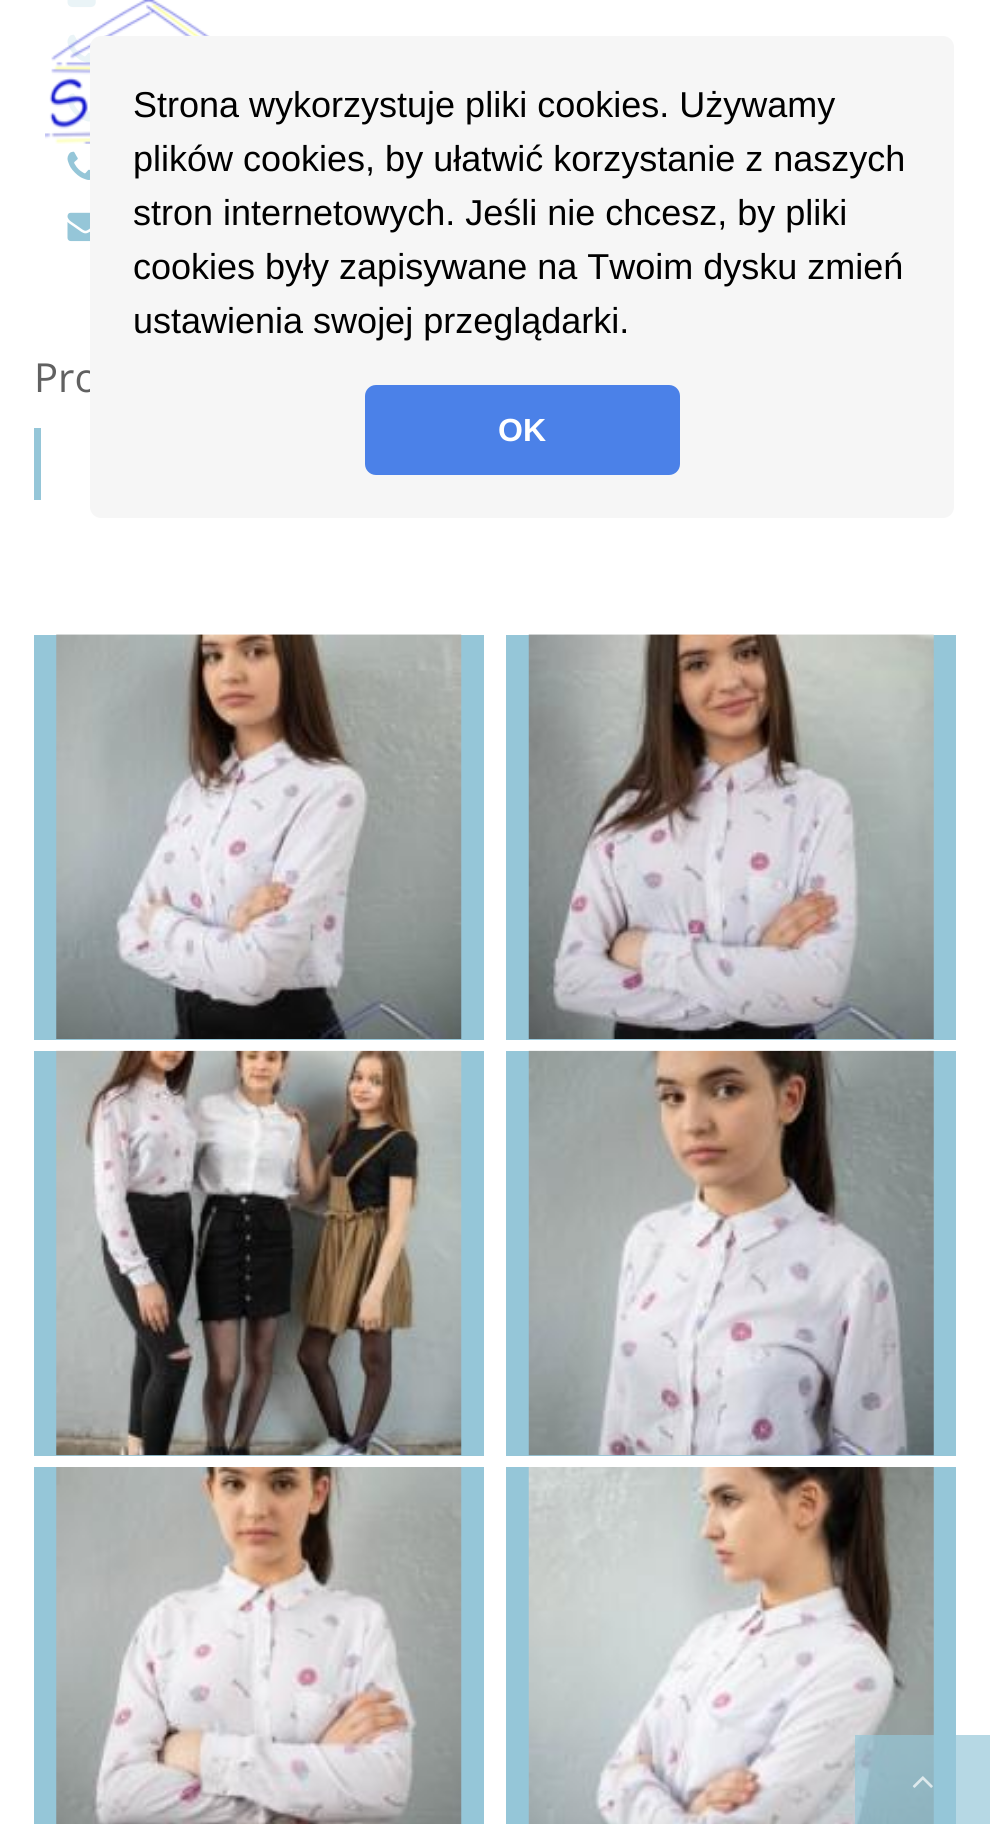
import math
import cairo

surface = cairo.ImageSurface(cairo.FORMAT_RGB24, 990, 1824)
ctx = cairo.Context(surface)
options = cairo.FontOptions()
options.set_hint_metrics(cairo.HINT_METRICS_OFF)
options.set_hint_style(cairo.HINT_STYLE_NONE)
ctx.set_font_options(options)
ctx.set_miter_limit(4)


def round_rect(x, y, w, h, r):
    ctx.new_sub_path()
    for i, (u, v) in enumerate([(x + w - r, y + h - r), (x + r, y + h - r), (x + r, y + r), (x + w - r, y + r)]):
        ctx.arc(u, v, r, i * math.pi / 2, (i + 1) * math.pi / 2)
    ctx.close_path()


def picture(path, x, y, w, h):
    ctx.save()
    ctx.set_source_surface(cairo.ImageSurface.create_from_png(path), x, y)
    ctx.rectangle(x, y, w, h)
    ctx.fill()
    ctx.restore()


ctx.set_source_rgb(1, 1, 1)
ctx.paint()
picture("img2.png", 67, 0, 29, 8)
picture("img3.png", 67, 34, 23, 29)
picture("img4.png", 67, 93, 23, 29)
picture("img1.png", 45, 0, 165, 144)
picture("img5.png", 67, 151, 23, 29)
picture("img6.png", 67, 212, 23, 30)
ctx.select_font_face("Open Sans")
ctx.set_font_size(40)
ctx.set_source_rgb(0.38, 0.38, 0.38)
ctx.move_to(34, 392)
ctx.show_text("Pro")
ctx.set_source_rgb(0.584, 0.776, 0.847)
ctx.rectangle(34, 428, 7, 72)
ctx.fill()
ctx.rectangle(34, 635, 450, 405)
ctx.fill()
picture("img7.png", 56, 634, 406, 405)
ctx.rectangle(506, 635, 450, 405)
ctx.fill()
picture("img8.png", 528, 634, 406, 405)
ctx.rectangle(34, 1051, 450, 405)
ctx.fill()
picture("img9.png", 56, 1050, 406, 406)
ctx.rectangle(506, 1051, 450, 405)
ctx.fill()
picture("img10.png", 528, 1050, 406, 406)
ctx.rectangle(34, 1467, 450, 357)
ctx.fill()
picture("img11.png", 56, 1467, 406, 357)
ctx.rectangle(506, 1467, 450, 357)
ctx.fill()
picture("img12.png", 528, 1467, 406, 357)
ctx.set_source_rgb(0.961, 0.961, 0.961)
round_rect(90, 36, 864, 482, 11)
ctx.fill()
ctx.select_font_face("Liberation Sans")
ctx.set_font_size(36)
ctx.set_source_rgb(0, 0, 0)
ctx.move_to(133, 117)
ctx.show_text("Strona wykorzystuje pliki cookies. Używamy")
ctx.move_to(133, 171)
ctx.show_text("plików cookies, by ułatwić korzystanie z naszych")
ctx.move_to(133, 225)
ctx.show_text("stron internetowych. Jeśli nie chcesz, by pliki")
ctx.move_to(133, 279)
ctx.show_text("cookies były zapisywane na Twoim dysku zmień")
ctx.move_to(133, 333)
ctx.show_text("ustawienia swojej przeglądarki.")
ctx.set_source_rgb(0.294, 0.506, 0.91)
round_rect(365, 385, 315, 90, 11)
ctx.fill()
ctx.select_font_face("Liberation Sans", cairo.FONT_SLANT_NORMAL, cairo.FONT_WEIGHT_BOLD)
ctx.set_font_size(32)
ctx.set_source_rgb(1, 1, 1)
ctx.move_to(498, 441)
ctx.show_text("OK")
ctx.set_source_rgba(0.584, 0.776, 0.847, 0.69)
ctx.rectangle(855, 1735, 135, 89)
ctx.fill()
picture("img13.png", 912, 1776, 21, 12)
surface.write_to_png("page.png")
